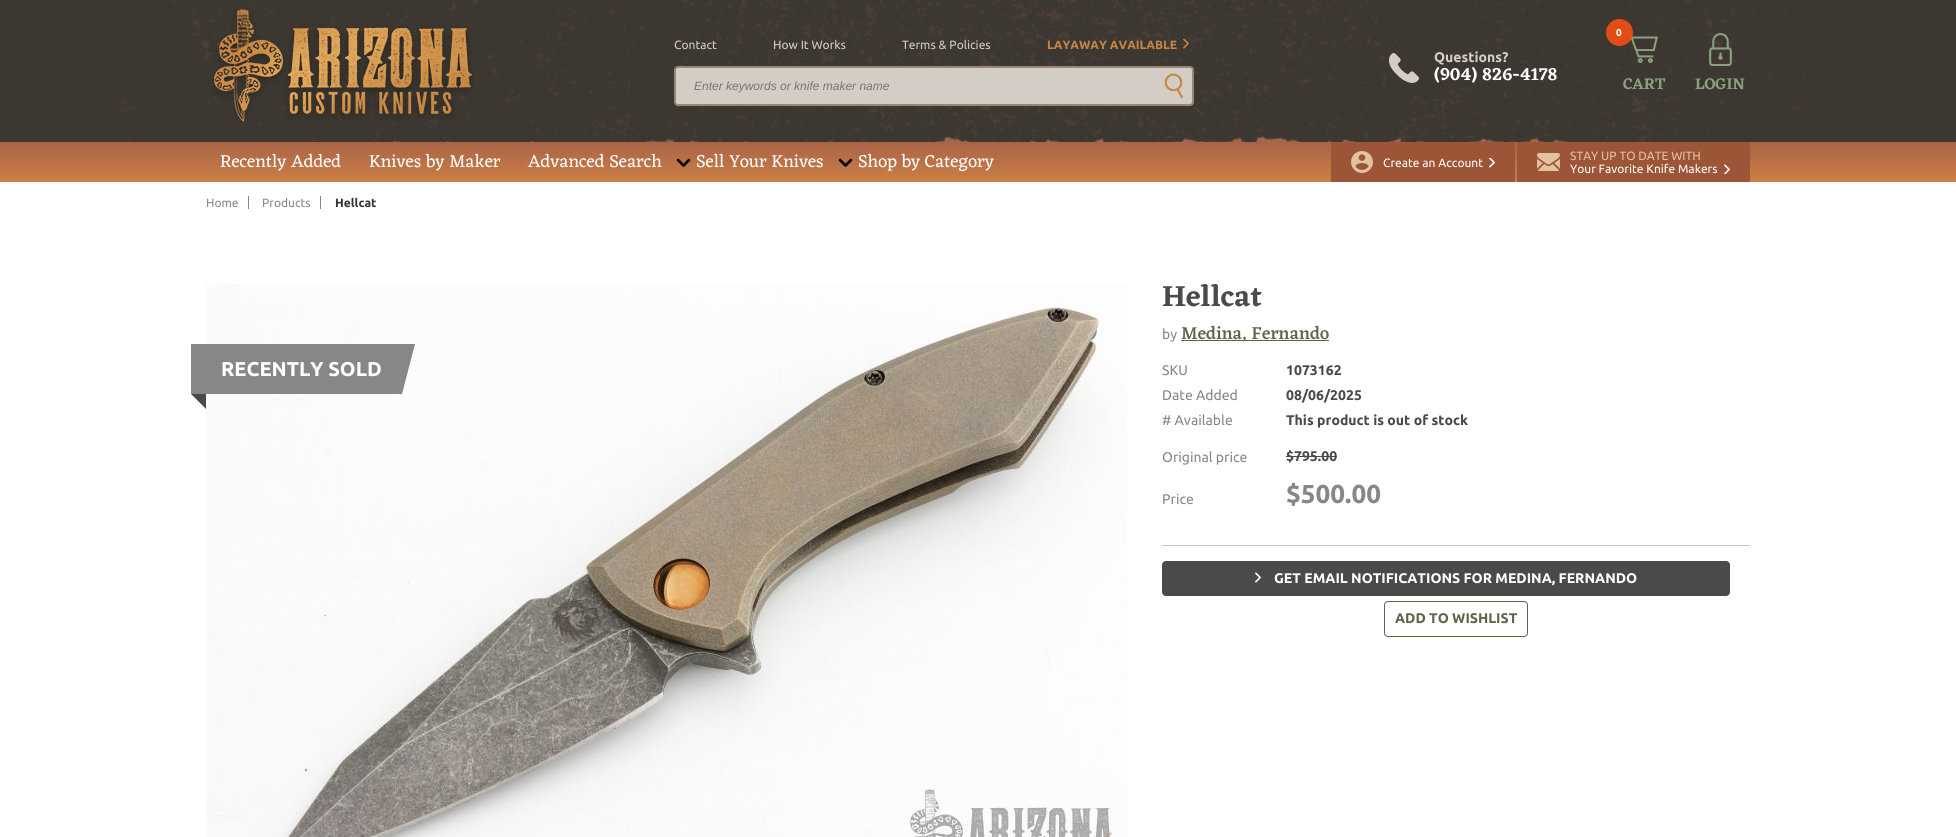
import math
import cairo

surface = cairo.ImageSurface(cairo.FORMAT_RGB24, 1956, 837)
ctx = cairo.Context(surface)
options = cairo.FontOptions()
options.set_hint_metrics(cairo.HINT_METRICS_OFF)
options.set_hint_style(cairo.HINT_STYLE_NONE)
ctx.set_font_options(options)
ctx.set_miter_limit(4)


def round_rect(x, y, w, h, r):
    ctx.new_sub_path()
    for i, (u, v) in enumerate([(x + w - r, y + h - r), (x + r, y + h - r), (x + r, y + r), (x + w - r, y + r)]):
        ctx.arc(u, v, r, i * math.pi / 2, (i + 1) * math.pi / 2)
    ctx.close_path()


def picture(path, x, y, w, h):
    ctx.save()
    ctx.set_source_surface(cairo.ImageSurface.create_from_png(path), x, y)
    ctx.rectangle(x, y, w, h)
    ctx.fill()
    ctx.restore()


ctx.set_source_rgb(1, 1, 1)
ctx.paint()
ctx.set_source_rgb(0.235, 0.216, 0.192)
ctx.rectangle(0, 0, 1956, 142)
ctx.fill()
picture("img1.png", 93, 0, 1799, 142)
picture("img2.png", 212, 9, 261, 113)
ctx.select_font_face("Ubuntu")
ctx.set_font_size(12)
ctx.set_source_rgb(0.831, 0.804, 0.773)
ctx.move_to(674, 49)
ctx.show_text("Contact")
ctx.move_to(773, 49)
ctx.show_text("How It Works")
ctx.move_to(902, 49)
ctx.show_text("Terms & Policies")
ctx.select_font_face("Ubuntu", cairo.FONT_SLANT_NORMAL, cairo.FONT_WEIGHT_BOLD)
ctx.set_source_rgb(0.78, 0.525, 0.259)
ctx.move_to(1047, 49)
ctx.show_text("LAYAWAY AVAILABLE")
picture("img3.png", 1183, 39, 6, 10)
ctx.set_source_rgb(0.831, 0.804, 0.773)
round_rect(675, 67, 518, 38, 3)
ctx.fill_preserve()
ctx.set_source_rgb(0.6, 0.525, 0.459)
ctx.stroke()
ctx.select_font_face("Liberation Sans", cairo.FONT_SLANT_ITALIC)
ctx.set_source_rgb(0.459, 0.459, 0.459)
ctx.move_to(694, 90)
ctx.show_text("Enter keywords or knife maker name")
picture("img4.png", 1164, 73, 20, 26)
picture("img5.png", 1389, 53, 30, 30)
ctx.select_font_face("Ubuntu", cairo.FONT_SLANT_NORMAL, cairo.FONT_WEIGHT_BOLD)
ctx.set_font_size(14)
ctx.set_source_rgb(0.831, 0.804, 0.773)
ctx.move_to(1434, 62)
ctx.show_text("Questions?")
ctx.select_font_face("Eczar SemiBold")
ctx.set_font_size(18)
ctx.set_source_rgb(1, 1, 1)
ctx.move_to(1434, 80)
ctx.show_text("(904) 826-4178")
picture("img6.png", 1631, 36, 27, 27)
ctx.set_source_rgb(0.886, 0.302, 0.075)
ctx.arc(1619.5, 32.5, 13.5, 0, 2 * math.pi)
ctx.fill()
ctx.select_font_face("Ubuntu", cairo.FONT_SLANT_NORMAL, cairo.FONT_WEIGHT_BOLD)
ctx.set_font_size(10)
ctx.set_source_rgb(1, 1, 1)
ctx.move_to(1616, 36)
ctx.show_text("0")
ctx.select_font_face("Eczar SemiBold")
ctx.set_font_size(16)
ctx.set_source_rgb(0.537, 0.631, 0.494)
ctx.move_to(1623, 89)
ctx.show_text("CART")
picture("img7.png", 1709, 33, 23, 33)
ctx.move_to(1695, 89)
ctx.show_text("LOGIN")
gradient = cairo.LinearGradient(978, 142, 978, 182)
gradient.add_color_stop_rgba(0, 0.663, 0.392, 0.275, 1)
gradient.add_color_stop_rgba(1, 0.8, 0.498, 0.271, 1)
ctx.set_source(gradient)
ctx.rectangle(0, 142, 1956, 40)
ctx.fill()
picture("img8.png", 375, 136, 1193, 6)
ctx.select_font_face("Eczar")
ctx.set_font_size(18)
ctx.set_source_rgb(1, 1, 1)
ctx.move_to(220, 167)
ctx.show_text("Recently Added")
ctx.move_to(369, 167)
ctx.show_text("Knives by Maker")
ctx.move_to(528, 167)
ctx.show_text("Advanced Search")
picture("img9.png", 676, 158, 15, 9)
ctx.move_to(696, 167)
ctx.show_text("Sell Your Knives")
picture("img9.png", 838, 158, 15, 9)
ctx.move_to(858, 167)
ctx.show_text("Shop by Category")
ctx.set_source_rgb(0.616, 0.333, 0.22)
ctx.rectangle(1331, 142, 184, 40)
ctx.fill()
picture("img10.png", 1351, 151, 22, 22)
ctx.select_font_face("Ubuntu")
ctx.set_font_size(12)
ctx.set_source_rgb(1, 1, 1)
ctx.move_to(1383, 167)
ctx.show_text("Create an Account")
picture("img11.png", 1489, 158, 6, 10)
ctx.set_source_rgb(0.616, 0.333, 0.22)
ctx.rectangle(1517, 142, 233, 40)
ctx.fill()
picture("img12.png", 1537, 153, 23, 18)
ctx.set_source_rgb(0.89, 0.761, 0.627)
ctx.move_to(1570, 160)
ctx.show_text("STAY UP TO DATE WITH")
ctx.set_source_rgb(1, 1, 1)
ctx.move_to(1570, 173)
ctx.show_text("Your Favorite Knife Makers")
picture("img13.png", 1724, 164, 6, 10)
ctx.set_source_rgb(0.529, 0.529, 0.529)
ctx.move_to(206, 207)
ctx.show_text("Home")
ctx.rectangle(248, 196, 1, 13)
ctx.fill()
ctx.move_to(262, 207)
ctx.show_text("Products")
ctx.rectangle(320, 196, 1, 13)
ctx.fill()
ctx.select_font_face("Ubuntu", cairo.FONT_SLANT_NORMAL, cairo.FONT_WEIGHT_BOLD)
ctx.set_source_rgb(0.2, 0.2, 0.2)
ctx.move_to(335, 207)
ctx.show_text("Hellcat")
picture("img14.png", 206, 284, 921, 553)
picture("img15.png", 1105, 832, 7, 5)
ctx.set_source_rgb(0.529, 0.529, 0.529)
ctx.rectangle(191, 344, 211, 50)
ctx.fill()
ctx.set_font_size(20)
ctx.set_source_rgb(1, 1, 1)
ctx.move_to(221, 376)
ctx.show_text("RECENTLY SOLD")
ctx.set_source_rgb(0.529, 0.529, 0.529)
ctx.new_path()
ctx.move_to(402, 344)
ctx.line_to(415, 344)
ctx.line_to(402, 394)
ctx.close_path()
ctx.fill()
ctx.set_source_rgb(0.29, 0.29, 0.29)
ctx.new_path()
ctx.move_to(191, 394)
ctx.line_to(206, 394)
ctx.line_to(206, 409)
ctx.close_path()
ctx.fill()
ctx.select_font_face("Eczar SemiBold")
ctx.set_font_size(30)
ctx.move_to(1162, 306)
ctx.show_text("Hellcat")
ctx.select_font_face("Ubuntu")
ctx.set_font_size(14)
ctx.set_source_rgb(0.529, 0.529, 0.529)
ctx.move_to(1162, 339)
ctx.show_text("by")
ctx.set_source_rgb(0.38, 0.392, 0.294)
ctx.rectangle(1181, 340, 148, 1)
ctx.fill()
ctx.select_font_face("Eczar Medium")
ctx.set_font_size(18)
ctx.move_to(1181, 339)
ctx.show_text("Medina, Fernando")
ctx.select_font_face("Ubuntu")
ctx.set_font_size(14)
ctx.set_source_rgb(0.529, 0.529, 0.529)
ctx.move_to(1162, 375)
ctx.show_text("SKU")
ctx.select_font_face("Ubuntu", cairo.FONT_SLANT_NORMAL, cairo.FONT_WEIGHT_BOLD)
ctx.set_source_rgb(0.29, 0.29, 0.29)
ctx.move_to(1286, 375)
ctx.show_text("1073162")
ctx.select_font_face("Ubuntu")
ctx.set_source_rgb(0.529, 0.529, 0.529)
ctx.move_to(1162, 400)
ctx.show_text("Date Added")
ctx.select_font_face("Ubuntu", cairo.FONT_SLANT_NORMAL, cairo.FONT_WEIGHT_BOLD)
ctx.set_source_rgb(0.29, 0.29, 0.29)
ctx.move_to(1286, 400)
ctx.show_text("08/06/2025")
ctx.select_font_face("Ubuntu")
ctx.set_source_rgb(0.529, 0.529, 0.529)
ctx.move_to(1162, 425)
ctx.show_text("# Available")
ctx.select_font_face("Ubuntu", cairo.FONT_SLANT_NORMAL, cairo.FONT_WEIGHT_BOLD)
ctx.set_source_rgb(0.29, 0.29, 0.29)
ctx.move_to(1286, 425)
ctx.show_text("This product is out of stock")
ctx.select_font_face("Ubuntu")
ctx.set_source_rgb(0.529, 0.529, 0.529)
ctx.move_to(1162, 462)
ctx.show_text("Original price")
ctx.select_font_face("Ubuntu", cairo.FONT_SLANT_NORMAL, cairo.FONT_WEIGHT_BOLD)
ctx.set_source_rgb(0.29, 0.29, 0.29)
ctx.move_to(1286, 461)
ctx.show_text("$795.00")
ctx.rectangle(1286, 456, 51, 1)
ctx.fill()
ctx.select_font_face("Ubuntu")
ctx.set_source_rgb(0.529, 0.529, 0.529)
ctx.move_to(1162, 504)
ctx.show_text("Price")
ctx.select_font_face("Ubuntu", cairo.FONT_SLANT_NORMAL, cairo.FONT_WEIGHT_BOLD)
ctx.set_font_size(26)
ctx.move_to(1286, 503)
ctx.show_text("$500.00")
ctx.set_source_rgb(0.761, 0.761, 0.761)
ctx.rectangle(1162, 545, 588, 1)
ctx.fill()
ctx.set_source_rgb(0.29, 0.29, 0.29)
round_rect(1162.5, 561.5, 567, 34, 3.5)
ctx.fill_preserve()
ctx.set_line_width(1)
ctx.stroke()
picture("img16.png", 1255, 572, 6, 11)
ctx.set_font_size(14)
ctx.set_source_rgb(1, 1, 1)
ctx.move_to(1274, 583)
ctx.show_text("GET EMAIL NOTIFICATIONS FOR MEDINA, FERNANDO")
round_rect(1384.5, 601.5, 143, 35, 3.5)
ctx.set_source_rgb(0.38, 0.392, 0.294)
ctx.stroke()
ctx.move_to(1395, 623)
ctx.show_text("ADD TO WISHLIST")
surface.write_to_png("page.png")
